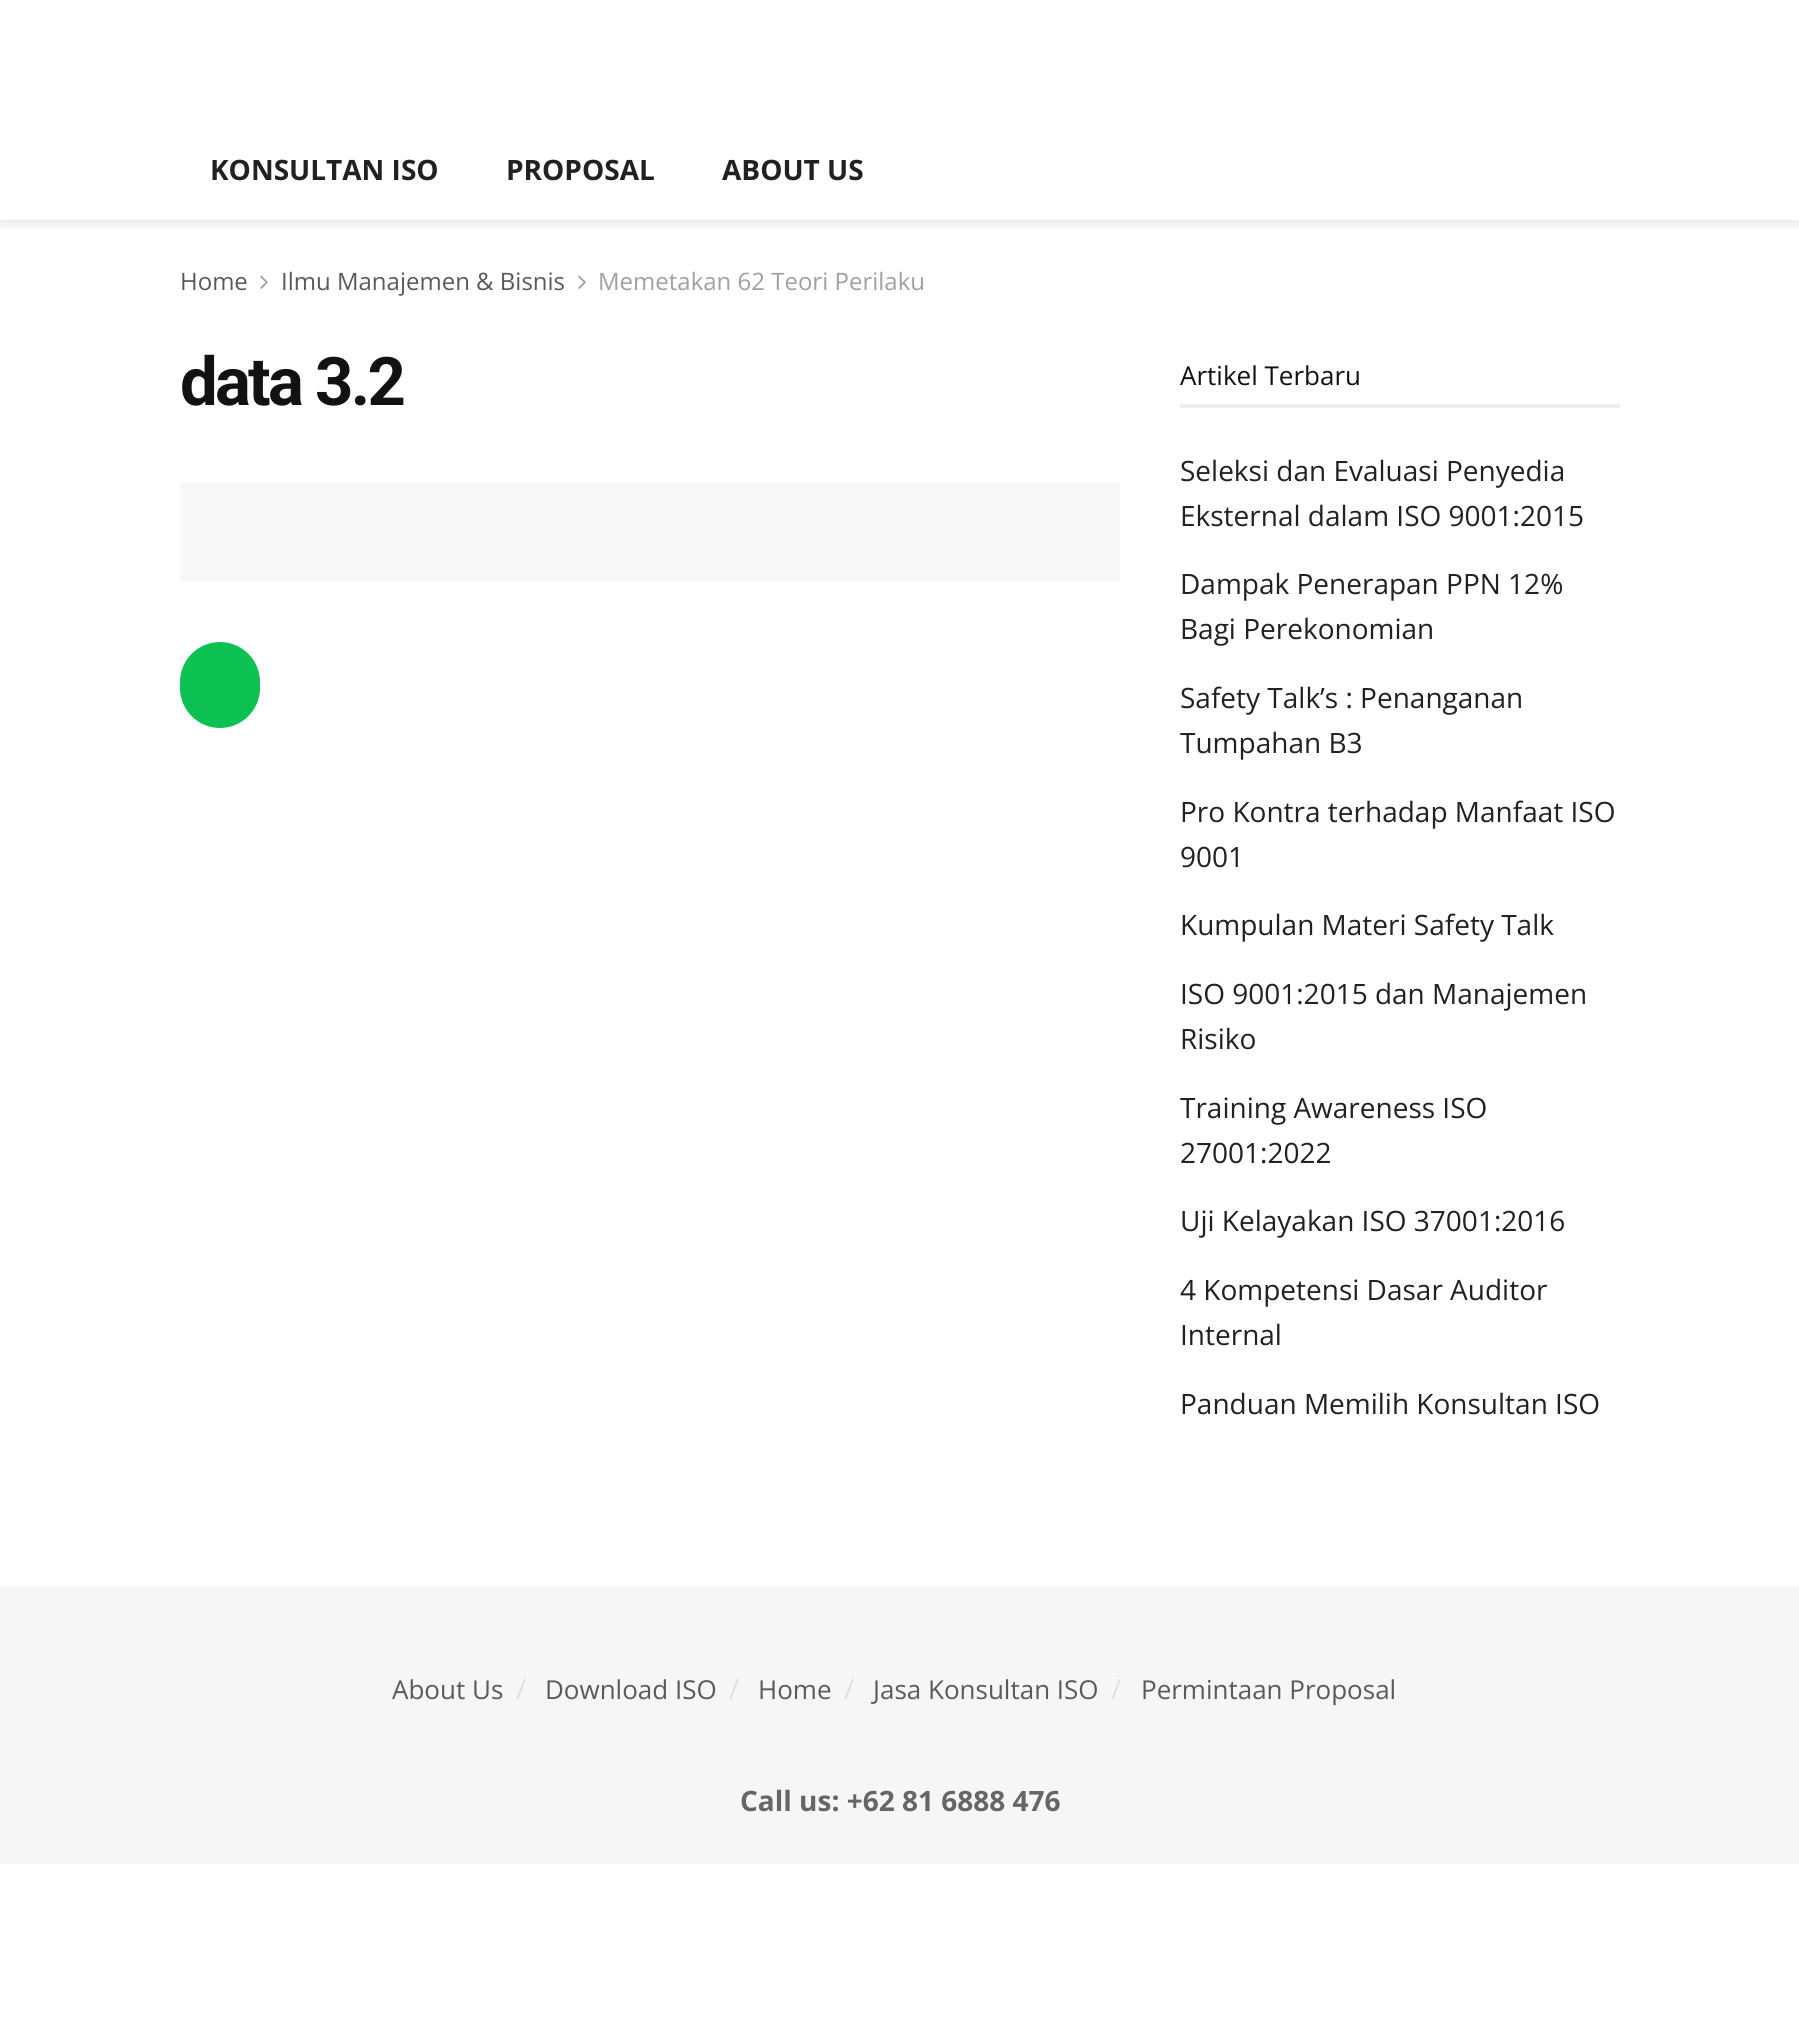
import math
import cairo

surface = cairo.ImageSurface(cairo.FORMAT_RGB24, 1799, 2033)
ctx = cairo.Context(surface)
options = cairo.FontOptions()
options.set_hint_metrics(cairo.HINT_METRICS_OFF)
options.set_hint_style(cairo.HINT_STYLE_NONE)
ctx.set_font_options(options)
ctx.set_miter_limit(4)


def spaced_text(x, y, s, letter, word):
    ctx.move_to(x, y)
    for ch in s:
        ctx.show_text(ch)
        ctx.rel_move_to(letter + word * (ch == ' '), 0)


def round_rect(x, y, w, h, r):
    ctx.new_sub_path()
    for i, (u, v) in enumerate([(x + w - r, y + h - r), (x + r, y + h - r), (x + r, y + r), (x + w - r, y + r)]):
        ctx.arc(u, v, r, i * math.pi / 2, (i + 1) * math.pi / 2)
    ctx.close_path()


def shadow(x, y, w, h, r, blur, alpha):
    ctx.push_group_with_content(cairo.CONTENT_ALPHA)
    ctx.set_operator(cairo.OPERATOR_SOURCE)
    for i in range(15, -16, -2):
        e = blur * i / 6
        if min(w, h) + 2 * e > 0:
            ctx.set_source_rgba(0, 0, 0, alpha * math.erfc((i - 1) / 8.5) / 2)
            round_rect(x - e, y - e, w + 2 * e, h + 2 * e, max(0, min(r + e + blur * .6, min(w, h) / 2 + e)))
            ctx.fill()
    ctx.mask(ctx.pop_group())


def picture(path, x, y, w, h):
    ctx.save()
    ctx.set_source_surface(cairo.ImageSurface.create_from_png(path), x, y)
    ctx.rectangle(x, y, w, h)
    ctx.fill()
    ctx.restore()


ctx.set_source_rgb(1, 1, 1)
ctx.paint()
ctx.save()
ctx.rectangle(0, 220, 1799, 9)
ctx.clip()
ctx.set_source_rgb(0, 0, 0)
shadow(0, 4, 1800, 220, 0, 6, 0.1)
ctx.restore()
ctx.select_font_face("Open Sans", cairo.FONT_SLANT_NORMAL, cairo.FONT_WEIGHT_BOLD)
ctx.set_font_size(28)
ctx.set_source_rgb(0.129, 0.129, 0.129)
ctx.move_to(210, 180)
ctx.show_text("KONSULTAN ISO")
ctx.move_to(506, 180)
ctx.show_text("PROPOSAL")
ctx.move_to(722, 180)
ctx.show_text("ABOUT US")
ctx.select_font_face("Open Sans")
ctx.set_font_size(24)
ctx.set_source_rgb(0.353, 0.353, 0.353)
ctx.move_to(180, 290)
ctx.show_text("Home")
picture("img1.png", 260, 275, 8, 14)
ctx.move_to(281, 290)
ctx.show_text("Ilmu Manajemen & Bisnis")
picture("img1.png", 578, 275, 8, 14)
ctx.set_source_rgb(0.627, 0.627, 0.627)
ctx.move_to(598, 290)
ctx.show_text("Memetakan 62 Teori Perilaku")
ctx.select_font_face("Roboto", cairo.FONT_SLANT_NORMAL, cairo.FONT_WEIGHT_BOLD)
ctx.set_font_size(67)
ctx.set_source_rgb(0.071, 0.071, 0.071)
spaced_text(180, 405, "data 3.2", -2.75, 0)
ctx.set_source_rgb(0.969, 0.969, 0.969)
ctx.rectangle(180, 482, 940, 100)
ctx.fill()
ctx.set_source_rgb(0.051, 0.757, 0.322)
round_rect(180, 642, 80, 86, 40)
ctx.fill()
ctx.set_source_rgb(0.933, 0.933, 0.933)
ctx.rectangle(1180, 404, 440, 4)
ctx.fill()
ctx.select_font_face("Open Sans")
ctx.set_font_size(26)
ctx.set_source_rgb(0.071, 0.071, 0.071)
ctx.move_to(1180, 385)
ctx.show_text("Artikel Terbaru")
ctx.set_font_size(28)
ctx.set_source_rgb(0.129, 0.129, 0.129)
ctx.move_to(1180, 481)
ctx.show_text("Seleksi dan Evaluasi Penyedia")
ctx.move_to(1180, 526)
ctx.show_text("Eksternal dalam ISO 9001:2015")
ctx.move_to(1180, 594)
ctx.show_text("Dampak Penerapan PPN 12%")
ctx.move_to(1180, 639)
ctx.show_text("Bagi Perekonomian")
ctx.move_to(1180, 708)
ctx.show_text("Safety Talk’s : Penanganan")
ctx.move_to(1180, 753)
ctx.show_text("Tumpahan B3")
ctx.move_to(1180, 822)
ctx.show_text("Pro Kontra terhadap Manfaat ISO")
ctx.move_to(1180, 867)
ctx.show_text("9001")
ctx.move_to(1180, 935)
ctx.show_text("Kumpulan Materi Safety Talk")
ctx.move_to(1180, 1004)
ctx.show_text("ISO 9001:2015 dan Manajemen")
ctx.move_to(1180, 1049)
ctx.show_text("Risiko")
ctx.move_to(1180, 1118)
ctx.show_text("Training Awareness ISO")
ctx.move_to(1180, 1163)
ctx.show_text("27001:2022")
ctx.move_to(1180, 1231)
ctx.show_text("Uji Kelayakan ISO 37001:2016")
ctx.move_to(1180, 1300)
ctx.show_text("4 Kompetensi Dasar Auditor")
ctx.move_to(1180, 1345)
ctx.show_text("Internal")
ctx.move_to(1180, 1414)
ctx.show_text("Panduan Memilih Konsultan ISO")
ctx.set_source_rgb(0.961, 0.961, 0.961)
ctx.rectangle(0, 1586, 1799, 278)
ctx.fill()
ctx.set_font_size(26)
ctx.set_source_rgb(0.353, 0.353, 0.353)
ctx.move_to(392, 1699)
ctx.show_text("About Us")
ctx.set_font_size(28)
ctx.set_source_rgb(0.878, 0.878, 0.878)
ctx.move_to(516, 1699)
ctx.show_text("/")
ctx.set_font_size(26)
ctx.set_source_rgb(0.353, 0.353, 0.353)
ctx.move_to(545, 1699)
ctx.show_text("Download ISO")
ctx.set_font_size(28)
ctx.set_source_rgb(0.878, 0.878, 0.878)
ctx.move_to(729, 1699)
ctx.show_text("/")
ctx.set_font_size(26)
ctx.set_source_rgb(0.353, 0.353, 0.353)
ctx.move_to(758, 1699)
ctx.show_text("Home")
ctx.set_font_size(28)
ctx.set_source_rgb(0.878, 0.878, 0.878)
ctx.move_to(844, 1699)
ctx.show_text("/")
ctx.set_font_size(26)
ctx.set_source_rgb(0.353, 0.353, 0.353)
ctx.move_to(873, 1699)
ctx.show_text("Jasa Konsultan ISO")
ctx.set_font_size(28)
ctx.set_source_rgb(0.878, 0.878, 0.878)
ctx.move_to(1111, 1699)
ctx.show_text("/")
ctx.set_font_size(26)
ctx.set_source_rgb(0.353, 0.353, 0.353)
ctx.move_to(1141, 1699)
ctx.show_text("Permintaan Proposal")
ctx.select_font_face("Open Sans", cairo.FONT_SLANT_NORMAL, cairo.FONT_WEIGHT_BOLD)
ctx.set_font_size(28)
ctx.set_source_rgb(0.4, 0.4, 0.4)
ctx.move_to(740, 1811)
ctx.show_text("Call us: +62 81 6888 476")
surface.write_to_png("page.png")
